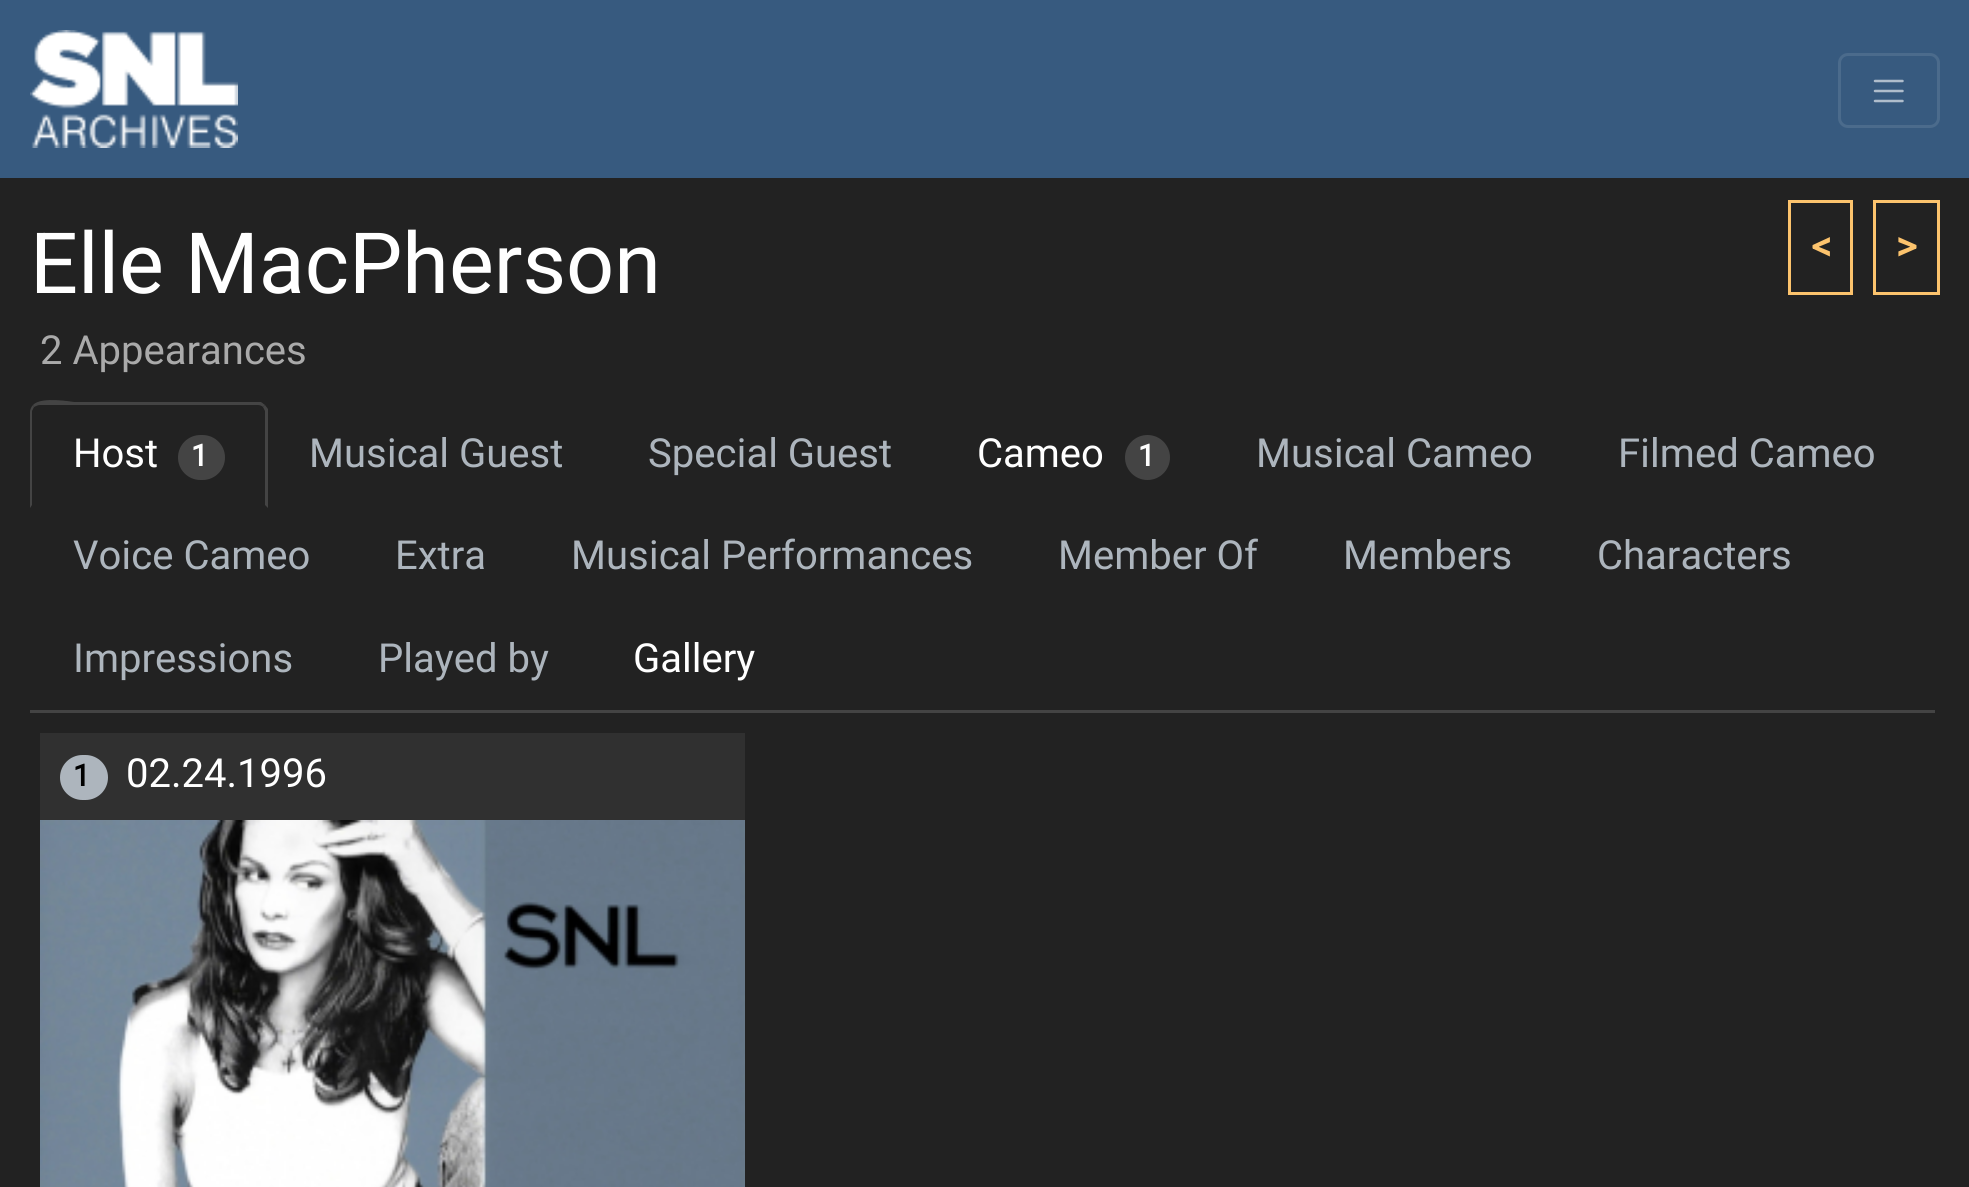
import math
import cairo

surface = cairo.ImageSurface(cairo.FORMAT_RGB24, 1969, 1187)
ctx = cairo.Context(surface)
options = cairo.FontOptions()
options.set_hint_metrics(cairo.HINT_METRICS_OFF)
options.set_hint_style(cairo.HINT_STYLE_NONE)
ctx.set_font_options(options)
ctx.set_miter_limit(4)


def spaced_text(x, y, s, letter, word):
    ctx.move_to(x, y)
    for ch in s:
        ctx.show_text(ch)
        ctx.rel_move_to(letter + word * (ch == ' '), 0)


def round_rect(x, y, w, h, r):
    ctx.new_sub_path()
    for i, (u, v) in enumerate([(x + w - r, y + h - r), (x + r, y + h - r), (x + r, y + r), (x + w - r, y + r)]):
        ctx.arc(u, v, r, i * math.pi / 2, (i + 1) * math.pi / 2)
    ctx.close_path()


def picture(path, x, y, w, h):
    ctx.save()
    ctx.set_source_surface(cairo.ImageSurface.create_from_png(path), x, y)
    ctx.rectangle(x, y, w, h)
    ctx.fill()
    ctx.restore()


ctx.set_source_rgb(0.133, 0.133, 0.133)
ctx.paint()
ctx.set_source_rgb(0.216, 0.353, 0.498)
ctx.rectangle(0, 0, 1969, 178)
ctx.fill()
picture("img1.png", 30, 30, 208, 118)
round_rect(1839.5, 54.5, 99, 72, 8.5)
ctx.set_source_rgb(0.294, 0.42, 0.549)
ctx.set_line_width(3)
ctx.stroke()
ctx.new_path()
ctx.move_to(1875, 81)
ctx.line_to(1902.5, 81)
ctx.move_to(1875, 91)
ctx.line_to(1902.5, 91)
ctx.move_to(1875, 101)
ctx.line_to(1902.5, 101)
ctx.set_source_rgb(0.686, 0.741, 0.8)
ctx.set_line_width(2.5)
ctx.set_line_cap(cairo.LINE_CAP_ROUND)
ctx.stroke()
ctx.select_font_face("Heebo")
ctx.set_font_size(84.5)
ctx.set_source_rgb(1, 1, 1)
ctx.move_to(30, 293)
ctx.show_text("Elle MacPherson")
ctx.rectangle(1789.5, 201.5, 62, 92)
ctx.set_source_rgb(0.988, 0.765, 0.427)
ctx.set_line_width(3)
ctx.set_line_cap(cairo.LINE_CAP_BUTT)
ctx.stroke()
ctx.select_font_face("Heebo", cairo.FONT_SLANT_NORMAL, cairo.FONT_WEIGHT_BOLD)
ctx.set_font_size(40)
ctx.move_to(1810, 260)
ctx.show_text("<")
ctx.rectangle(1874.5, 201.5, 64, 92)
ctx.stroke()
ctx.move_to(1896, 260)
ctx.show_text(">")
ctx.select_font_face("Heebo")
ctx.set_source_rgb(0.667, 0.667, 0.667)
ctx.move_to(40, 364)
ctx.show_text("2 Appearances")
ctx.set_source_rgb(0.267, 0.267, 0.267)
ctx.rectangle(30, 710, 1905, 3)
ctx.fill()
ctx.new_path()
ctx.move_to(40, 405)
ctx.curve_to(38, 405, 36, 406, 34, 407)
ctx.line_to(33, 405)
ctx.curve_to(41, 396, 73, 402, 74, 402)
ctx.line_to(261, 402)
ctx.line_to(265, 405)
ctx.line_to(263, 407)
ctx.curve_to(262, 406, 260, 405, 258, 405)
ctx.close_path()
ctx.fill()
ctx.new_path()
ctx.move_to(265, 405)
ctx.line_to(268, 409)
ctx.line_to(268, 508)
ctx.line_to(265, 505)
ctx.line_to(265, 411)
ctx.line_to(263, 407)
ctx.close_path()
ctx.fill()
ctx.new_path()
ctx.move_to(30, 508)
ctx.line_to(32, 505)
ctx.line_to(32, 411)
ctx.line_to(34, 407)
ctx.line_to(33, 405)
ctx.curve_to(31, 407, 30, 410, 30, 412)
ctx.close_path()
ctx.fill()
ctx.set_source_rgb(1, 1, 1)
ctx.move_to(73, 467)
ctx.show_text("Host")
ctx.set_source_rgb(0.267, 0.267, 0.267)
round_rect(178, 435, 47, 45, 22.5)
ctx.fill()
ctx.select_font_face("Heebo", cairo.FONT_SLANT_NORMAL, cairo.FONT_WEIGHT_BOLD)
ctx.set_font_size(30)
ctx.set_source_rgb(1, 1, 1)
spaced_text(191, 466, "1", 2, 0)
ctx.select_font_face("Heebo")
ctx.set_font_size(40)
ctx.set_source_rgb(0.678, 0.71, 0.741)
ctx.move_to(309, 467)
ctx.show_text("Musical Guest")
ctx.move_to(648, 467)
ctx.show_text("Special Guest")
ctx.set_source_rgb(1, 1, 1)
ctx.move_to(977, 467)
ctx.show_text("Cameo")
ctx.set_source_rgb(0.267, 0.267, 0.267)
ctx.new_path()
ctx.arc(1147.5, 457.5, 22.5, 0, 2 * math.pi)
ctx.fill()
ctx.select_font_face("Heebo", cairo.FONT_SLANT_NORMAL, cairo.FONT_WEIGHT_BOLD)
ctx.set_font_size(30)
ctx.set_source_rgb(1, 1, 1)
spaced_text(1138, 466, "1", 2, 0)
ctx.select_font_face("Heebo")
ctx.set_font_size(40)
ctx.set_source_rgb(0.678, 0.71, 0.741)
ctx.move_to(1256, 467)
ctx.show_text("Musical Cameo")
ctx.move_to(1618, 467)
ctx.show_text("Filmed Cameo")
ctx.move_to(73, 569)
ctx.show_text("Voice Cameo")
ctx.move_to(395, 569)
ctx.show_text("Extra")
ctx.move_to(571, 569)
ctx.show_text("Musical Performances")
ctx.move_to(1058, 569)
ctx.show_text("Member Of")
ctx.move_to(1343, 569)
ctx.show_text("Members")
ctx.move_to(1597, 569)
ctx.show_text("Characters")
ctx.move_to(73, 672)
ctx.show_text("Impressions")
ctx.move_to(378, 672)
ctx.show_text("Played by")
ctx.set_source_rgb(1, 1, 1)
ctx.move_to(633, 672)
ctx.show_text("Gallery")
ctx.set_source_rgb(0.188, 0.188, 0.188)
ctx.rectangle(40, 733, 705, 87)
ctx.fill()
ctx.set_source_rgb(0.678, 0.71, 0.741)
round_rect(60, 755, 48, 45, 22.5)
ctx.fill()
ctx.select_font_face("Heebo", cairo.FONT_SLANT_NORMAL, cairo.FONT_WEIGHT_BOLD)
ctx.set_font_size(30)
ctx.set_source_rgb(0, 0, 0)
spaced_text(73, 786, "1", 2, 0)
ctx.select_font_face("Heebo")
ctx.set_font_size(40)
ctx.set_source_rgb(1, 1, 1)
ctx.move_to(126, 787)
ctx.show_text("02.24.1996")
picture("img2.png", 40, 820, 705, 367)
surface.write_to_png("page.png")
